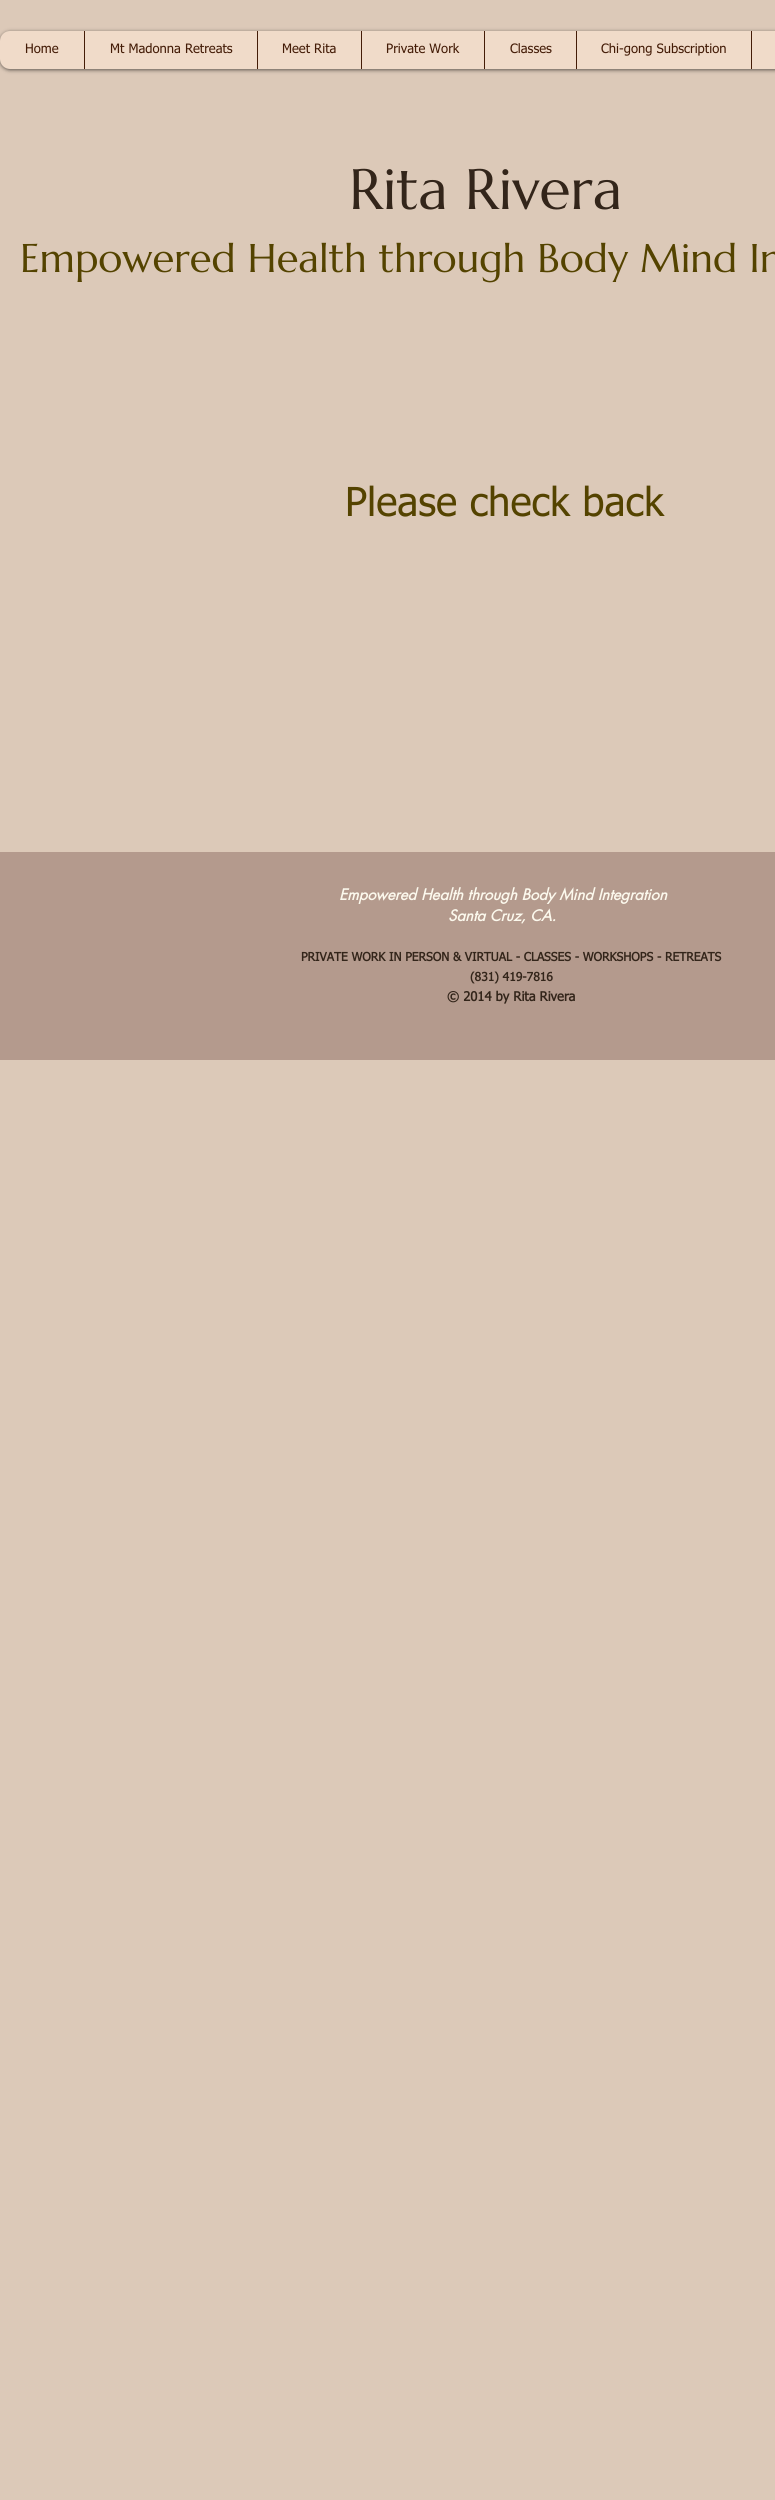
import math
import cairo

surface = cairo.ImageSurface(cairo.FORMAT_RGB24, 775, 2500)
ctx = cairo.Context(surface)
options = cairo.FontOptions()
options.set_hint_metrics(cairo.HINT_METRICS_OFF)
options.set_hint_style(cairo.HINT_STYLE_NONE)
ctx.set_font_options(options)
ctx.set_miter_limit(4)


def round_rect(x, y, w, h, r):
    ctx.new_sub_path()
    for i, (u, v) in enumerate([(x + w - r, y + h - r), (x + r, y + h - r), (x + r, y + r), (x + w - r, y + r)]):
        ctx.arc(u, v, r, i * math.pi / 2, (i + 1) * math.pi / 2)
    ctx.close_path()


def shadow(x, y, w, h, r, blur, alpha):
    ctx.push_group_with_content(cairo.CONTENT_ALPHA)
    ctx.set_operator(cairo.OPERATOR_SOURCE)
    for i in range(15, -16, -2):
        e = blur * i / 6
        if min(w, h) + 2 * e > 0:
            ctx.set_source_rgba(0, 0, 0, alpha * math.erfc((i - 1) / 8.5) / 2)
            round_rect(x - e, y - e, w + 2 * e, h + 2 * e, max(0, min(r + e + blur * .6, min(w, h) / 2 + e)))
            ctx.fill()
    ctx.mask(ctx.pop_group())


ctx.set_source_rgb(0.863, 0.788, 0.722)
ctx.paint()
ctx.set_source_rgb(0, 0, 0)
shadow(0, 32, 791, 38, 10, 2, 0.6)
ctx.set_source_rgb(0.941, 0.859, 0.788)
round_rect(0, 31, 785, 38, 10)
ctx.fill()
ctx.select_font_face("tahoma")
ctx.set_font_size(13)
ctx.set_source_rgb(0.267, 0.11, 0.031)
ctx.move_to(25, 53)
ctx.show_text("Home")
ctx.rectangle(84, 31, 1, 38)
ctx.fill()
ctx.move_to(110, 53)
ctx.show_text("Mt Madonna Retreats")
ctx.rectangle(257, 31, 1, 38)
ctx.fill()
ctx.move_to(282, 53)
ctx.show_text("Meet Rita")
ctx.rectangle(361, 31, 1, 38)
ctx.fill()
ctx.move_to(386, 53)
ctx.show_text("Private Work")
ctx.rectangle(484, 31, 1, 38)
ctx.fill()
ctx.move_to(510, 53)
ctx.show_text("Classes")
ctx.rectangle(576, 31, 1, 38)
ctx.fill()
ctx.move_to(601, 53)
ctx.show_text("Chi-gong Subscription")
ctx.rectangle(751, 31, 1, 38)
ctx.fill()
ctx.select_font_face("Marcellus")
ctx.set_font_size(57)
ctx.set_source_rgb(0.2, 0.145, 0.102)
ctx.move_to(349, 209)
ctx.show_text("Rita Rivera")
ctx.set_font_size(40)
ctx.set_source_rgb(0.329, 0.263, 0)
ctx.move_to(20, 272)
ctx.show_text("Empowered Health through Body Mind In")
ctx.select_font_face("tahoma")
ctx.move_to(345, 516)
ctx.show_text("Please check back")
ctx.set_source_rgb(0.706, 0.604, 0.553)
ctx.rectangle(0, 852, 775, 208)
ctx.fill()
ctx.select_font_face("futura", cairo.FONT_SLANT_ITALIC, cairo.FONT_WEIGHT_BOLD)
ctx.set_font_size(15)
ctx.set_source_rgb(0.988, 0.973, 0.929)
ctx.move_to(339, 900)
ctx.show_text("Empowered Health through Body Mind Integration")
ctx.move_to(448, 921)
ctx.show_text("Santa Cruz, CA.")
ctx.select_font_face("tahoma", cairo.FONT_SLANT_NORMAL, cairo.FONT_WEIGHT_BOLD)
ctx.set_font_size(12)
ctx.set_source_rgb(0.2, 0.145, 0.102)
ctx.move_to(301, 961)
ctx.show_text("PRIVATE WORK IN PERSON & VIRTUAL - CLASSES - WORKSHOPS - RETREATS")
ctx.move_to(470, 981)
ctx.show_text("(831) 419-7816")
ctx.set_font_size(13)
ctx.move_to(447, 1001)
ctx.show_text("© 2014 by Rita Rivera")
surface.write_to_png("page.png")
